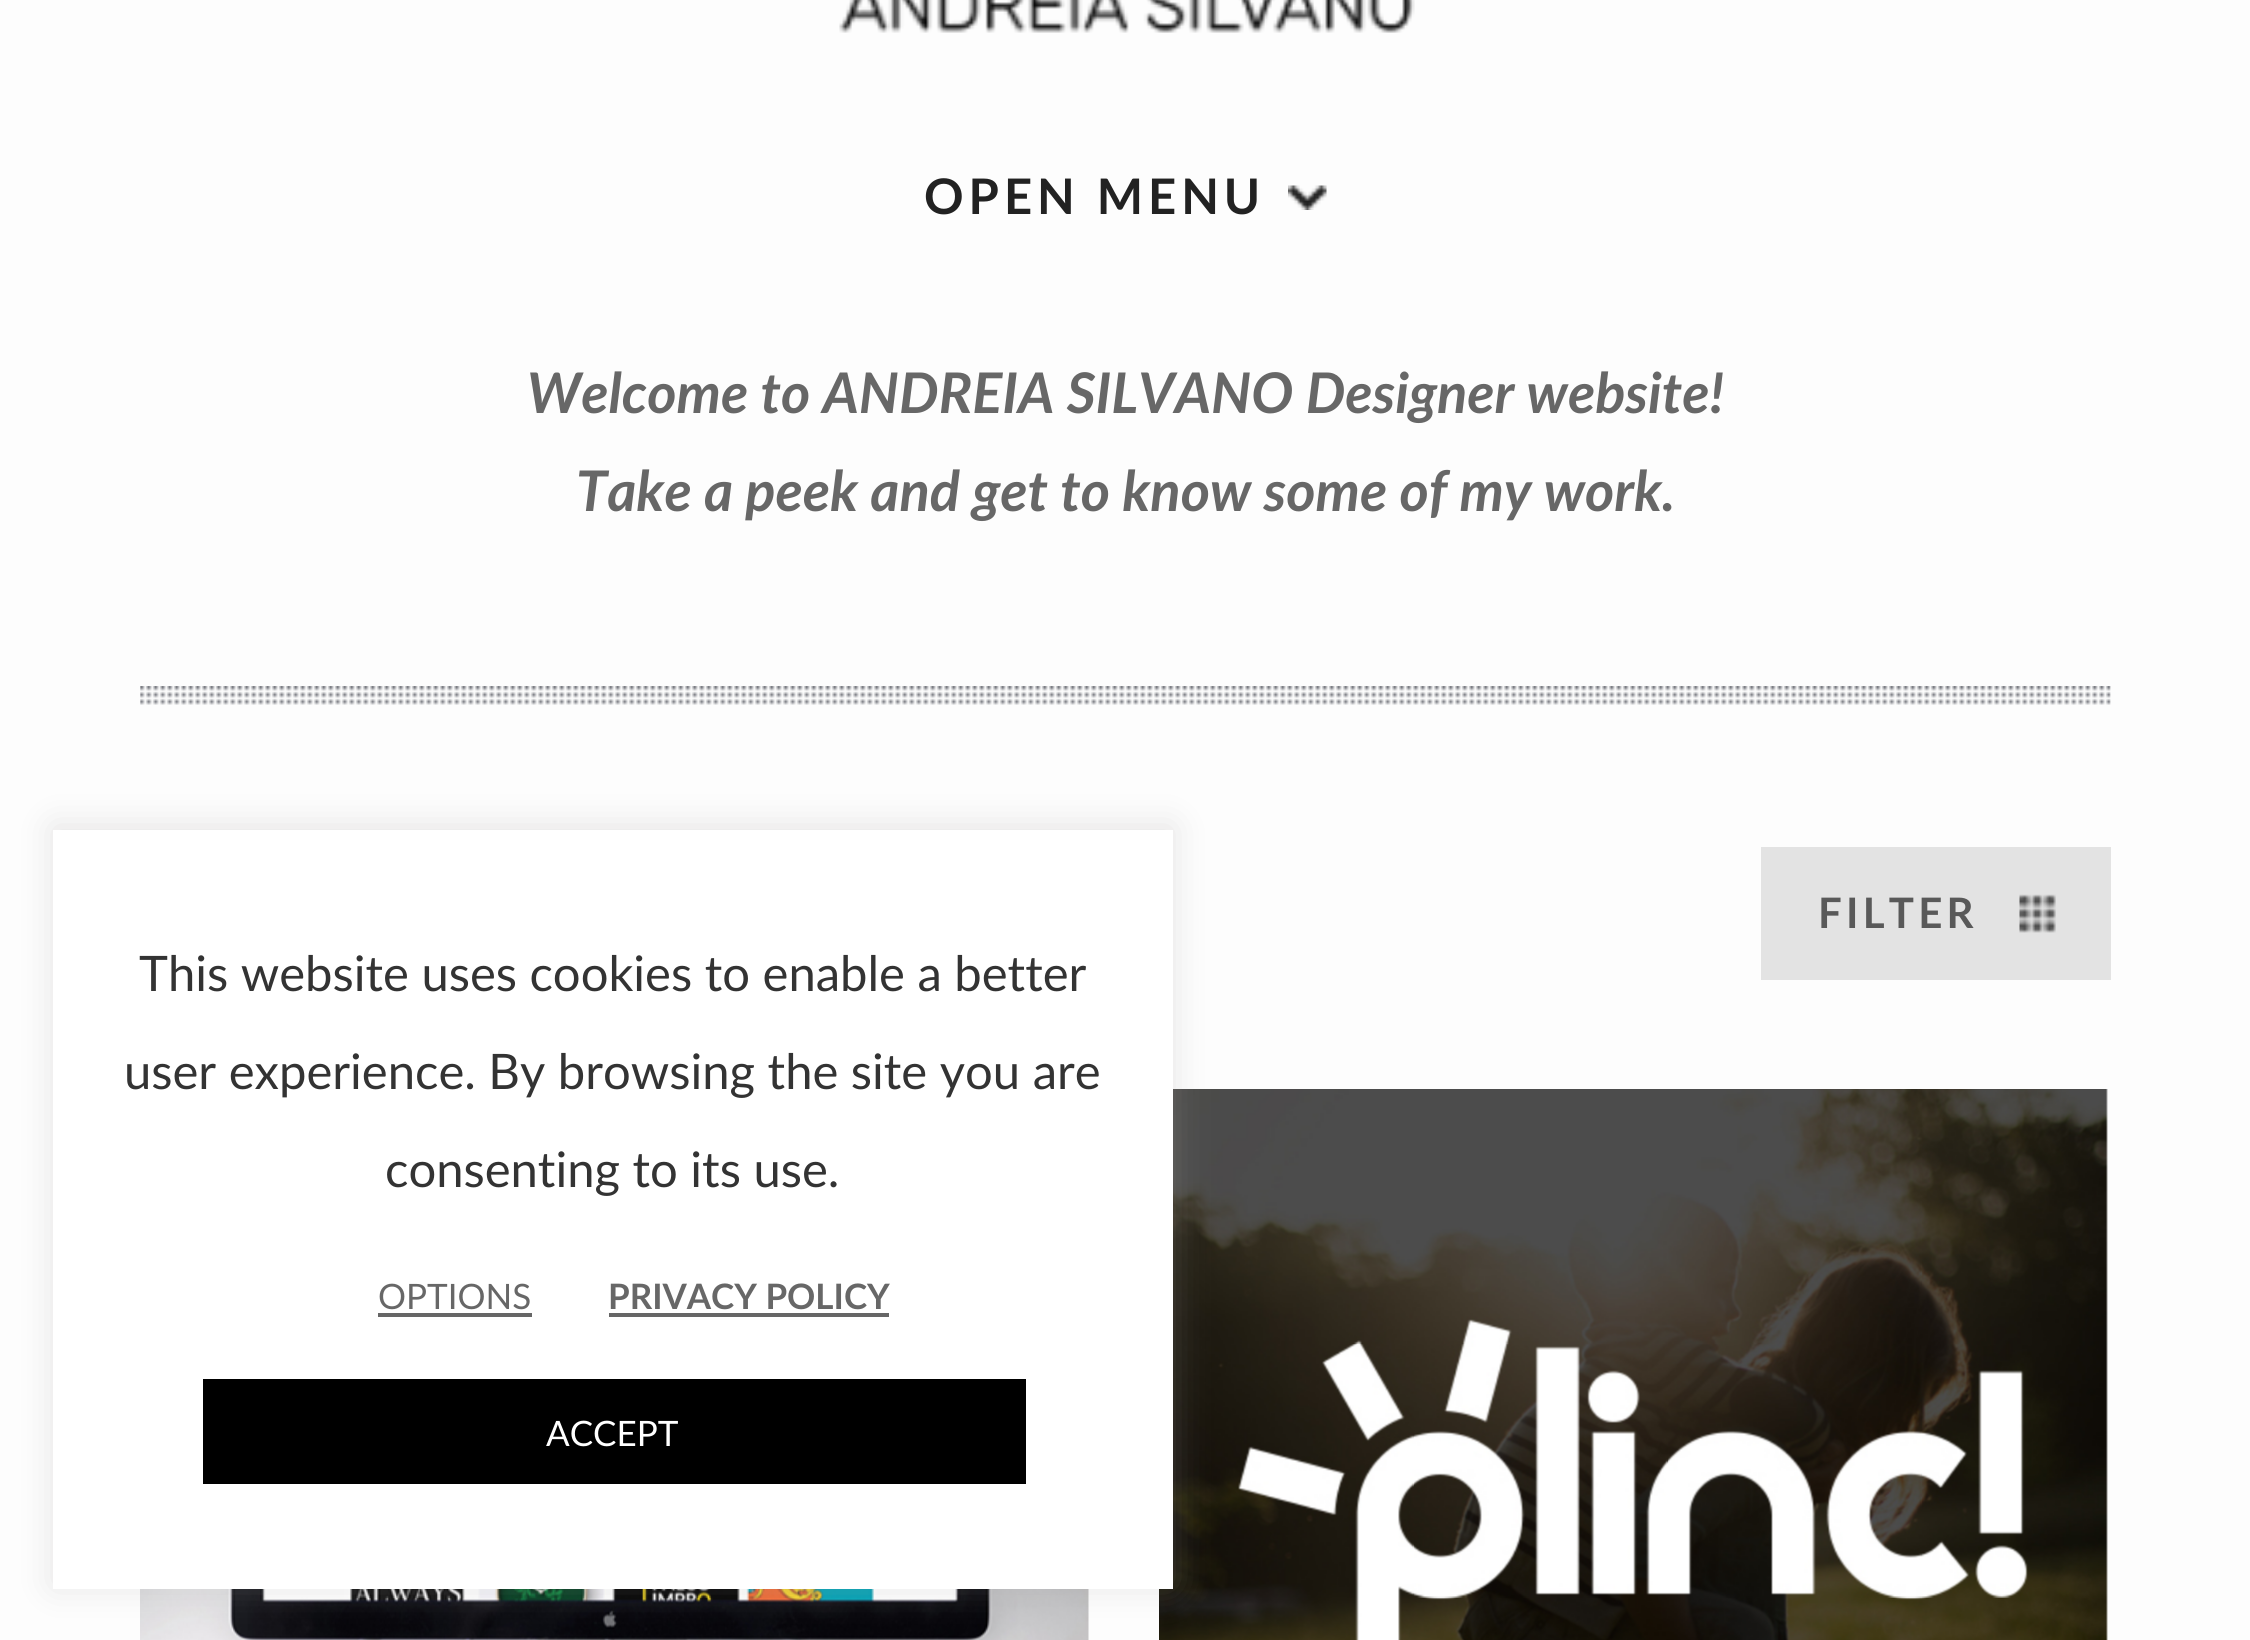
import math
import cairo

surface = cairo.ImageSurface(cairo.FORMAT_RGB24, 2250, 1640)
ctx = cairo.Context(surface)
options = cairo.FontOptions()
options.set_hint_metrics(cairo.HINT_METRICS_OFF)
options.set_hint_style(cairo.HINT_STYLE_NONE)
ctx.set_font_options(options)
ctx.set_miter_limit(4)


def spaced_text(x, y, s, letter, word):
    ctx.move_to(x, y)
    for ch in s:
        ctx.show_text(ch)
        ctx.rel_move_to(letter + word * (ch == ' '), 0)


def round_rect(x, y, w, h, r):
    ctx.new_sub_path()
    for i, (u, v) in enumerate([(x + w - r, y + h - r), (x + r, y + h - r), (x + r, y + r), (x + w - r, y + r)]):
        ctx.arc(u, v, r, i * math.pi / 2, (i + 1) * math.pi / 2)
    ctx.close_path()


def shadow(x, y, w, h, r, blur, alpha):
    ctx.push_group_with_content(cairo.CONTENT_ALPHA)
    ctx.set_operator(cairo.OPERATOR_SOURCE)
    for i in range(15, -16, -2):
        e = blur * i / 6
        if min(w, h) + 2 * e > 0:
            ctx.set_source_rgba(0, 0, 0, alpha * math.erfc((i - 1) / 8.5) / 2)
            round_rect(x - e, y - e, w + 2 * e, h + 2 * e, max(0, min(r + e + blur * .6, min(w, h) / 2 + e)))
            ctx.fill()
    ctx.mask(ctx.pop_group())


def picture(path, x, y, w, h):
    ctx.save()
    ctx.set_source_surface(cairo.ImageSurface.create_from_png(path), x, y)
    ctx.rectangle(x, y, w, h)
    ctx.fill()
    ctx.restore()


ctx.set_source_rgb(0.992, 0.992, 0.992)
ctx.paint()
picture("img1.png", 140, 686, 1971, 19)
picture("img2.png", 839, 0, 576, 33)
ctx.select_font_face("Lato", cairo.FONT_SLANT_NORMAL, cairo.FONT_WEIGHT_BOLD)
ctx.set_font_size(49)
ctx.set_source_rgb(0.133, 0.133, 0.133)
spaced_text(924, 214, "OPEN MENU", 5, 0)
picture("img3.png", 1288, 185, 39, 25)
ctx.select_font_face("Lato", cairo.FONT_SLANT_ITALIC, cairo.FONT_WEIGHT_BOLD)
ctx.set_font_size(56)
ctx.set_source_rgb(0.404, 0.404, 0.404)
ctx.move_to(527, 413)
ctx.show_text("Welcome to ANDREIA SILVANO Designer website!")
ctx.move_to(576, 511)
ctx.show_text("Take a peek and get to know some of my work.")
ctx.set_source_rgb(0.89, 0.89, 0.89)
ctx.rectangle(1761, 847, 350, 133)
ctx.fill()
ctx.select_font_face("Lato", cairo.FONT_SLANT_NORMAL, cairo.FONT_WEIGHT_BOLD)
ctx.set_font_size(42)
ctx.set_source_rgb(0.349, 0.349, 0.349)
spaced_text(1818, 928, "FILTER", 4.25, 0)
picture("img4.png", 2019, 894, 37, 39)
picture("img5.png", 140, 1589, 949, 51)
picture("img6.png", 1159, 1089, 949, 551)
ctx.set_source_rgb(0.675, 0.671, 0.671)
shadow(53, 826, 1120, 760, 0, 17.5, 0.3)
ctx.set_source_rgb(1, 1, 1)
ctx.rectangle(53, 830, 1120, 759)
ctx.fill()
ctx.select_font_face("Lato")
ctx.set_font_size(49)
ctx.set_source_rgb(0.2, 0.2, 0.2)
ctx.move_to(139, 991)
ctx.show_text("This website uses cookies to enable a better")
ctx.move_to(124, 1089)
ctx.show_text("user experience. By browsing the site you are")
ctx.move_to(385, 1187)
ctx.show_text("consenting to its use.")
ctx.set_font_size(35)
ctx.set_source_rgb(0.404, 0.404, 0.404)
ctx.move_to(378, 1309)
ctx.show_text("OPTIONS")
ctx.set_source_rgb(0.4, 0.4, 0.4)
ctx.rectangle(378, 1313, 154, 4)
ctx.fill()
ctx.select_font_face("Lato", cairo.FONT_SLANT_NORMAL, cairo.FONT_WEIGHT_BOLD)
ctx.set_source_rgb(0.404, 0.404, 0.404)
ctx.move_to(608, 1309)
ctx.show_text("PRIVACY POLICY")
ctx.set_source_rgb(0.4, 0.4, 0.4)
ctx.rectangle(609, 1313, 280, 4)
ctx.fill()
ctx.set_source_rgb(0, 0, 0)
ctx.rectangle(203, 1379, 823, 105)
ctx.fill()
ctx.select_font_face("Lato")
ctx.set_source_rgb(1, 1, 1)
ctx.move_to(546, 1446)
ctx.show_text("ACCEPT")
surface.write_to_png("page.png")
